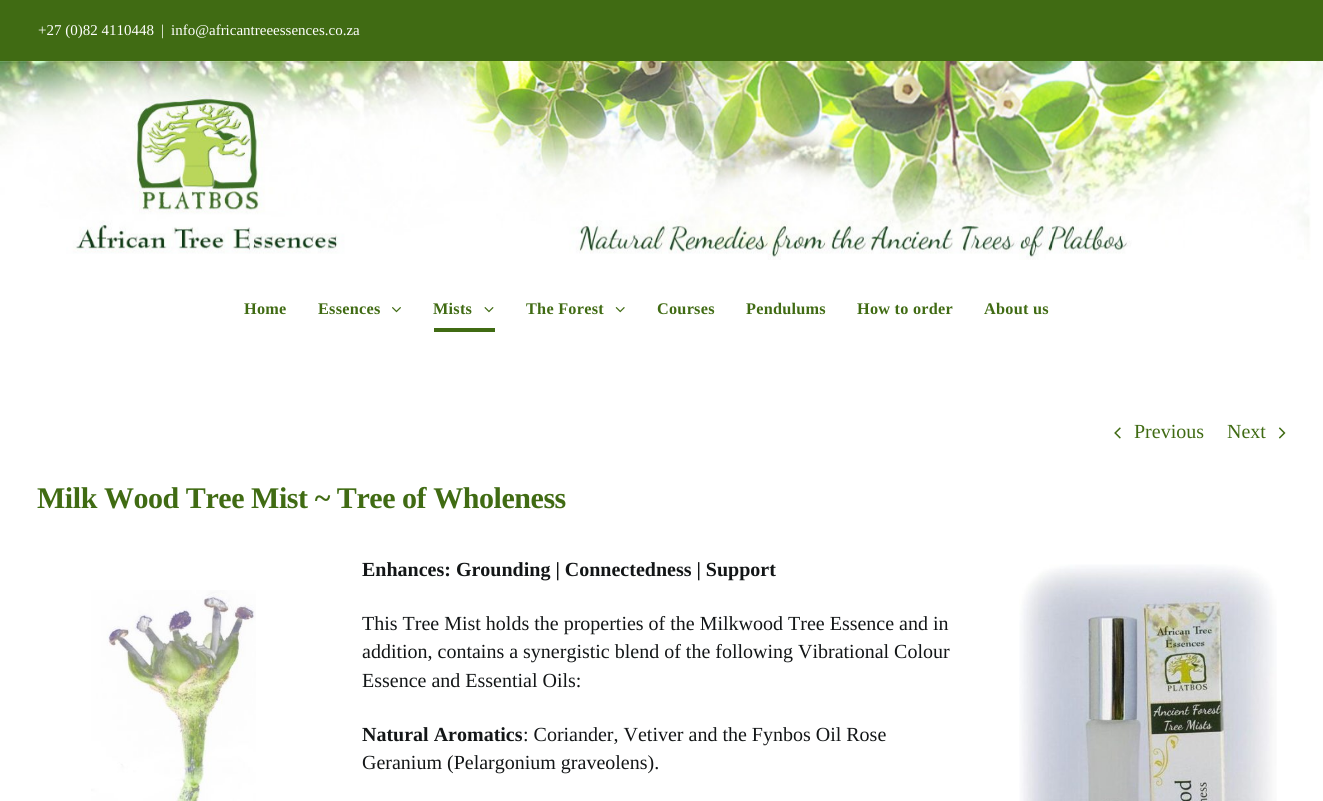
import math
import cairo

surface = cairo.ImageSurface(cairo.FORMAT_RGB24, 1323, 801)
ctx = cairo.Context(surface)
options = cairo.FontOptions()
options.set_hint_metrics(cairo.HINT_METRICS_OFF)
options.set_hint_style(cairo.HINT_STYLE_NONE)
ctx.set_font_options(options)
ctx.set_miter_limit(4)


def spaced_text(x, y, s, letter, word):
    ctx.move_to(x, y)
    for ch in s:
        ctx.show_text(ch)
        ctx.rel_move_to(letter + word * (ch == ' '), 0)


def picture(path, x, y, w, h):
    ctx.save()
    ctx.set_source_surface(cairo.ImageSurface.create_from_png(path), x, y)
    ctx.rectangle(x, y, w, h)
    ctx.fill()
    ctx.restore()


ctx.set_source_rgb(1, 1, 1)
ctx.paint()
ctx.set_source_rgb(0.251, 0.42, 0.078)
ctx.rectangle(0, 0, 1323, 61)
ctx.fill()
ctx.select_font_face("Liberation Serif")
ctx.set_font_size(15)
ctx.set_source_rgb(1, 1, 1)
ctx.move_to(38, 35)
ctx.show_text("+27 (0)82 4110448")
ctx.move_to(161, 35)
ctx.show_text("|")
ctx.move_to(171, 35)
ctx.show_text("info@africantreeessences.co.za")
picture("img1.png", 0, 61, 1323, 199)
ctx.select_font_face("Liberation Serif", cairo.FONT_SLANT_NORMAL, cairo.FONT_WEIGHT_BOLD)
ctx.set_font_size(16.25)
ctx.set_source_rgb(0.251, 0.42, 0.078)
spaced_text(244, 314, "Home", 0.25, 0)
spaced_text(318, 314, "Essences", 0.25, 0)
picture("img2.png", 392, 307, 9, 6)
spaced_text(433, 314, "Mists", 0.25, 0)
picture("img3.png", 484, 307, 10, 6)
ctx.rectangle(434, 328, 61, 4)
ctx.fill()
ctx.save()
ctx.rectangle(526, 284, 130, 50)
ctx.clip()
spaced_text(526, 314, "The Forest", 0.25, 0)
ctx.restore()
picture("img4.png", 615, 307, 10, 6)
spaced_text(657, 314, "Courses", 0.25, 0)
spaced_text(746, 314, "Pendulums", 0.25, 0)
spaced_text(857, 314, "How to order", 0.25, 0)
spaced_text(984, 314, "About us", 0.25, 0)
picture("img5.png", 1114, 427, 7, 12)
ctx.select_font_face("Liberation Serif")
ctx.set_font_size(20)
ctx.move_to(1134, 438)
ctx.show_text("Previous")
ctx.move_to(1227, 438)
ctx.show_text("Next")
picture("img6.png", 1278, 427, 8, 12)
ctx.select_font_face("Liberation Serif", cairo.FONT_SLANT_NORMAL, cairo.FONT_WEIGHT_BOLD)
ctx.set_font_size(30)
spaced_text(37, 508, "Milk Wood Tree Mist ~ Tree of Wholeness", -0.45, 0)
picture("img7.png", 91, 590, 165, 211)
ctx.set_font_size(20)
ctx.set_source_rgb(0.078, 0.086, 0.09)
ctx.move_to(362, 576)
ctx.show_text("Enhances: Grounding | Connectedness | Support")
ctx.select_font_face("Liberation Serif")
ctx.move_to(362, 630)
ctx.show_text("This Tree Mist holds the properties of the Milkwood Tree Essence and in")
ctx.move_to(362, 658)
ctx.show_text("addition, contains a synergistic blend of the following Vibrational Colour")
ctx.move_to(362, 687)
ctx.show_text("Essence and Essential Oils:")
ctx.select_font_face("Liberation Serif", cairo.FONT_SLANT_NORMAL, cairo.FONT_WEIGHT_BOLD)
ctx.move_to(362, 741)
ctx.show_text("Natural Aromatics")
ctx.select_font_face("Liberation Serif")
ctx.move_to(523, 741)
ctx.show_text(": Coriander, Vetiver and the Fynbos Oil Rose")
ctx.move_to(362, 769)
ctx.show_text("Geranium (Pelargonium graveolens).")
picture("img8.png", 1019, 564, 258, 237)
surface.write_to_png("page.png")
